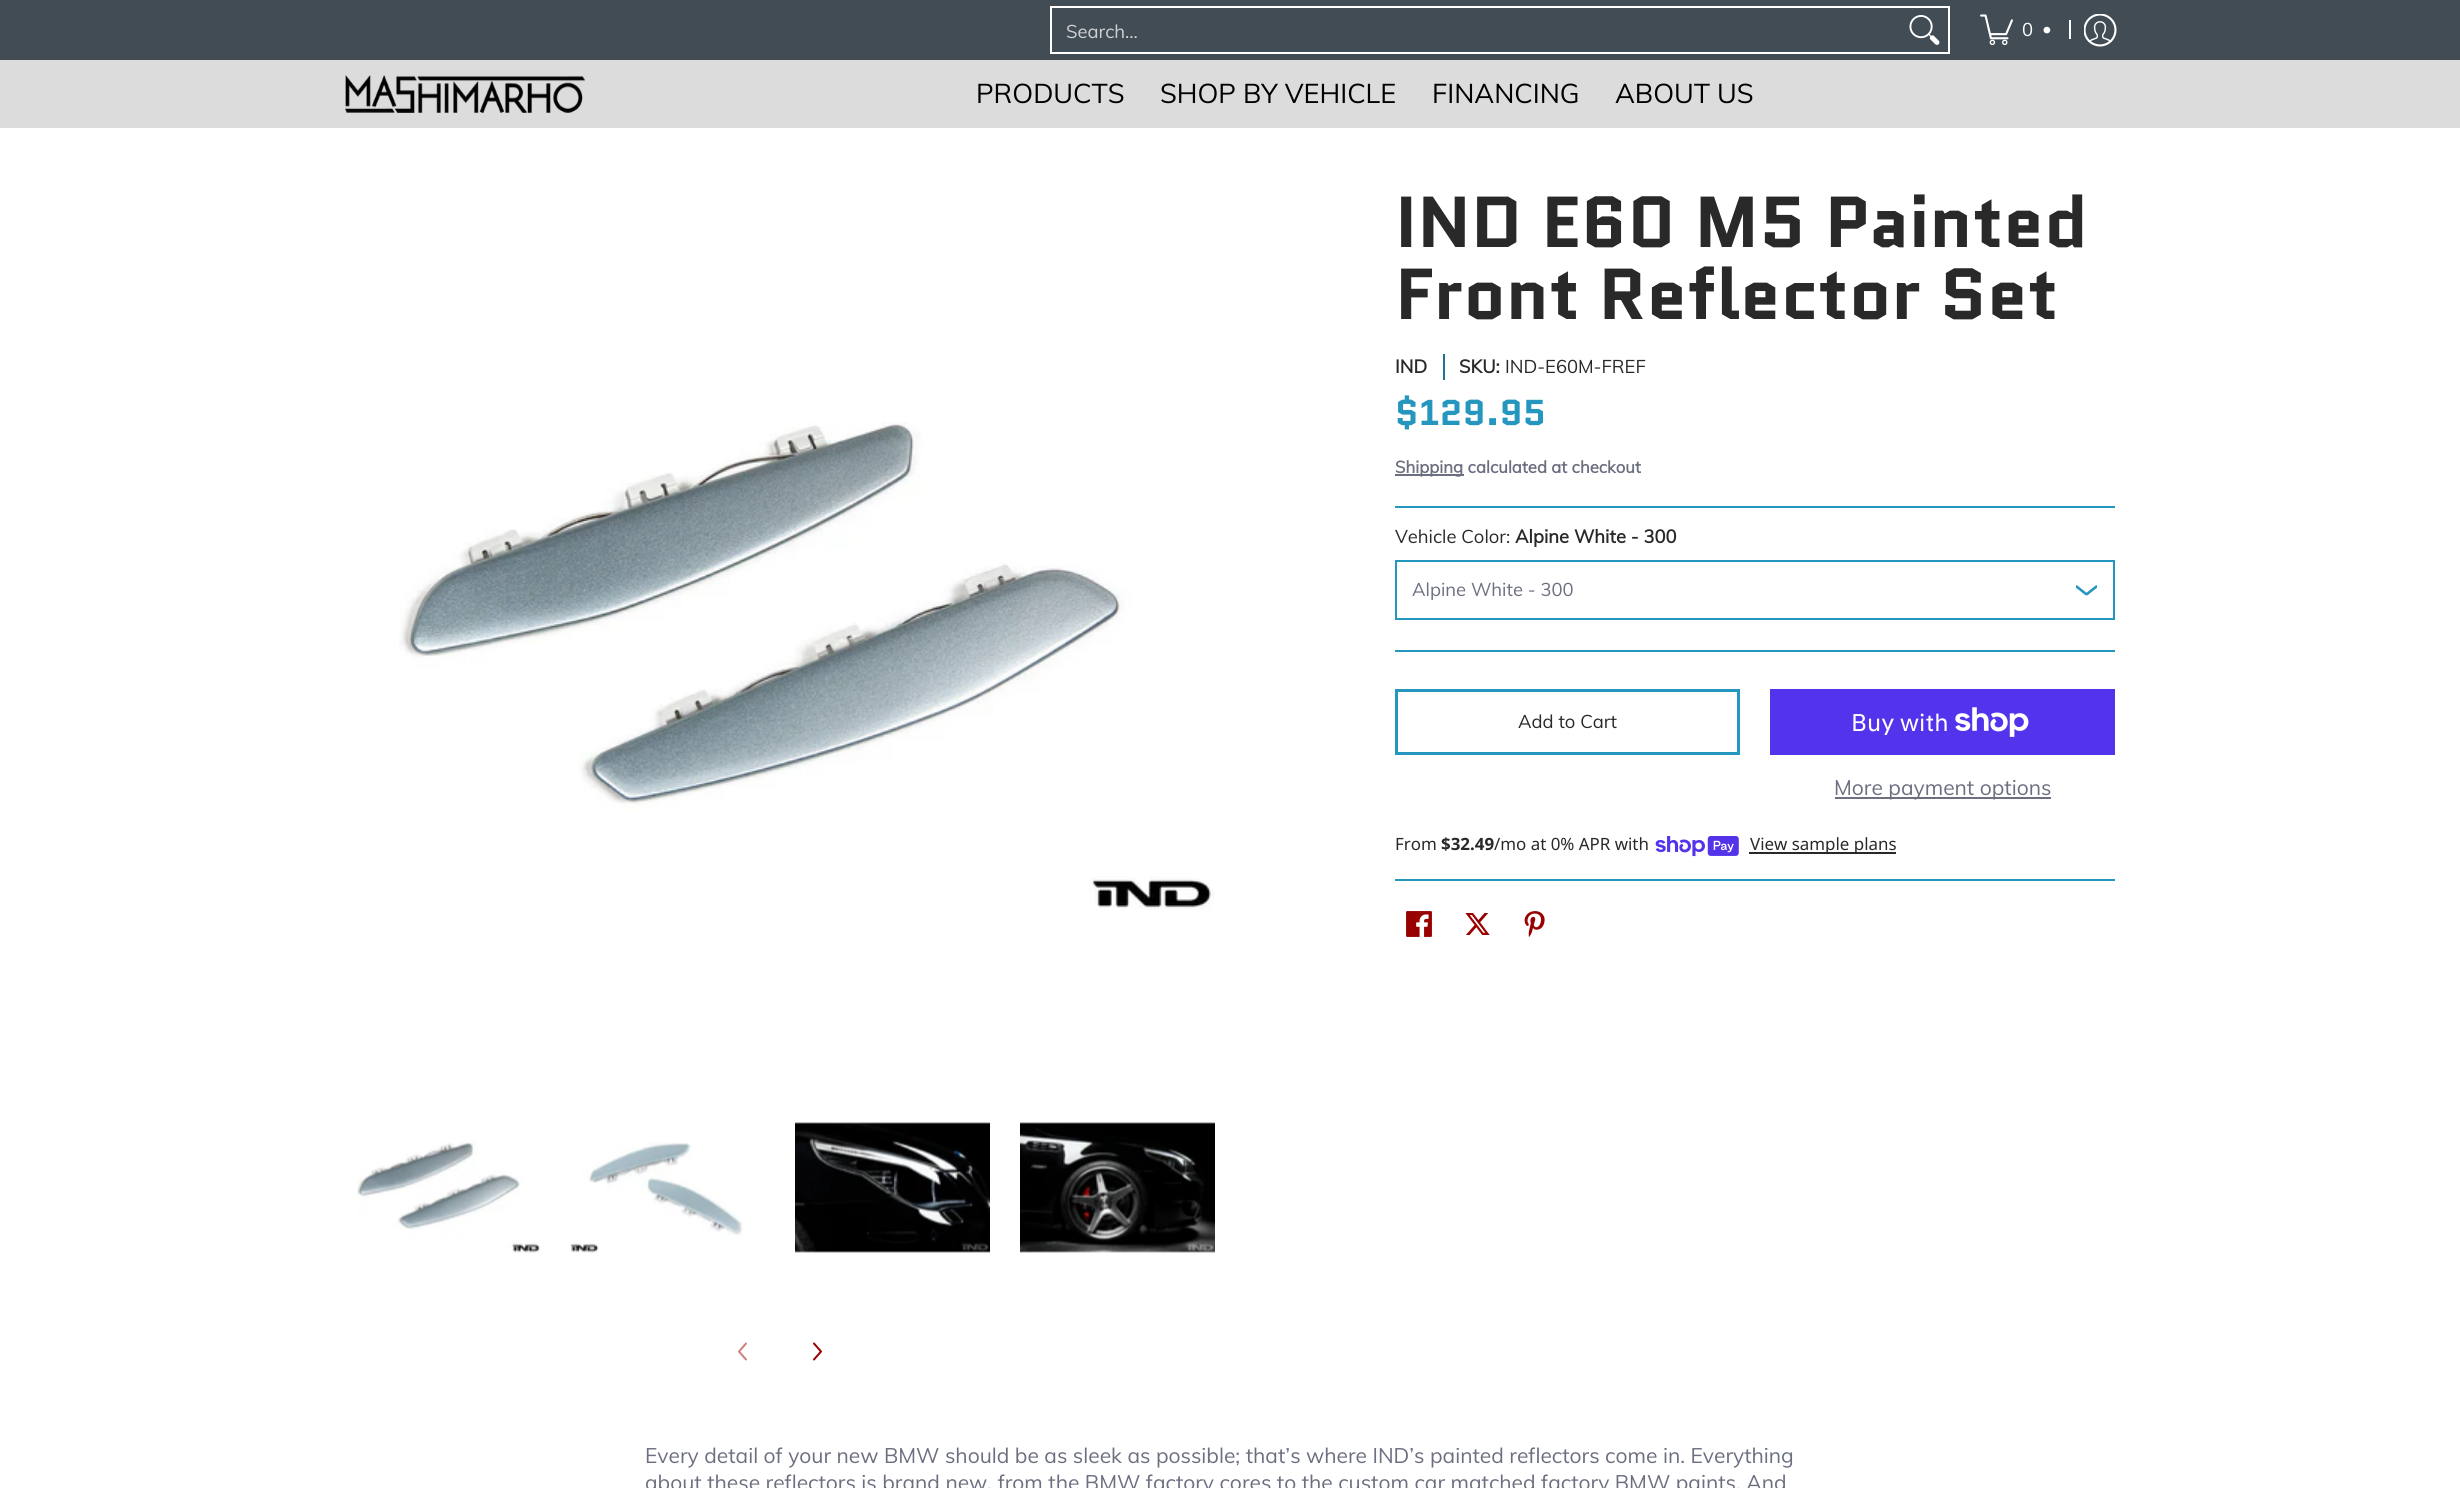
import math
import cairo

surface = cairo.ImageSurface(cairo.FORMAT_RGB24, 2460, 1488)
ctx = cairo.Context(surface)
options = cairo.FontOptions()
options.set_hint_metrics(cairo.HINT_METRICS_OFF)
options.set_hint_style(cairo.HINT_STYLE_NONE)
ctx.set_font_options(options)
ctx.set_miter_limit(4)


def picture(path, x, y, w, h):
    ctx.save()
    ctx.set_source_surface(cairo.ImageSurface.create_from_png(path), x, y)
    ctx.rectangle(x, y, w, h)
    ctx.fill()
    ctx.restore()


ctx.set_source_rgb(1, 1, 1)
ctx.paint()
ctx.set_source_rgb(0.863, 0.863, 0.863)
ctx.rectangle(0, 60, 2460, 68)
ctx.fill()
ctx.set_source_rgb(0.259, 0.298, 0.333)
ctx.rectangle(0, 0, 2460, 60)
ctx.fill()
ctx.rectangle(1051, 7, 898, 46)
ctx.set_source_rgb(1, 1, 1)
ctx.stroke()
ctx.select_font_face("Muli")
ctx.set_font_size(18.4)
ctx.set_source_rgb(0.816, 0.824, 0.835)
ctx.move_to(1066, 38)
ctx.show_text("Search...")
picture("img1.png", 1909, 15, 31, 30)
picture("img2.png", 1980, 14, 33, 32)
ctx.set_source_rgb(1, 1, 1)
ctx.move_to(2022, 36)
ctx.show_text("0")
ctx.move_to(2042, 35)
ctx.show_text("•")
ctx.rectangle(2069, 20, 2, 19)
ctx.fill()
picture("img3.png", 2084, 14, 33, 33)
picture("img4.png", 345, 75, 240, 38)
ctx.set_font_size(27)
ctx.set_source_rgb(0, 0, 0)
ctx.move_to(976, 103)
ctx.show_text("PRODUCTS")
ctx.move_to(1160, 103)
ctx.show_text("SHOP BY VEHICLE")
ctx.move_to(1432, 103)
ctx.show_text("FINANCING")
ctx.move_to(1615, 103)
ctx.show_text("ABOUT US")
picture("img5.png", 399, 422, 815, 488)
picture("img6.png", 357, 1142, 183, 111)
picture("img7.png", 570, 1142, 173, 111)
picture("img8.png", 795, 1122, 195, 131)
picture("img9.png", 1020, 1122, 195, 131)
ctx.new_path()
ctx.move_to(746, 1343.5)
ctx.line_to(739, 1351.5)
ctx.line_to(746, 1359.5)
ctx.set_source_rgb(0.8, 0.502, 0.502)
ctx.set_line_cap(cairo.LINE_CAP_ROUND)
ctx.set_line_join(cairo.LINE_JOIN_ROUND)
ctx.stroke()
ctx.new_path()
ctx.move_to(814, 1359.5)
ctx.line_to(821, 1351.5)
ctx.line_to(814, 1343.5)
ctx.set_source_rgb(0.6, 0, 0)
ctx.stroke()
ctx.select_font_face("Quantico", cairo.FONT_SLANT_NORMAL, cairo.FONT_WEIGHT_BOLD)
ctx.set_font_size(72)
ctx.set_source_rgb(0.161, 0.161, 0.161)
ctx.move_to(1395, 247)
ctx.show_text("IND E60 M5 Painted")
ctx.move_to(1395, 319)
ctx.show_text("Front Reflector Set")
ctx.select_font_face("Muli", cairo.FONT_SLANT_NORMAL, cairo.FONT_WEIGHT_BOLD)
ctx.set_font_size(18.4)
ctx.move_to(1395, 373)
ctx.show_text("IND")
ctx.set_source_rgb(0.114, 0.455, 0.576)
ctx.rectangle(1443, 354, 2, 26)
ctx.fill()
ctx.set_source_rgb(0.161, 0.161, 0.161)
ctx.move_to(1459, 373)
ctx.show_text("SKU:")
ctx.select_font_face("Muli")
ctx.move_to(1505, 373)
ctx.show_text("IND-E60M-FREF")
ctx.select_font_face("Quantico", cairo.FONT_SLANT_NORMAL, cairo.FONT_WEIGHT_BOLD)
ctx.set_font_size(36)
ctx.set_source_rgb(0.145, 0.588, 0.745)
ctx.move_to(1395, 425)
ctx.show_text("$129.95")
ctx.set_source_rgb(0.42, 0.435, 0.502)
ctx.rectangle(1395, 474, 69, 2)
ctx.fill()
ctx.select_font_face("Muli", cairo.FONT_SLANT_NORMAL, cairo.FONT_WEIGHT_BOLD)
ctx.set_font_size(16.75)
ctx.move_to(1395, 473)
ctx.show_text("Shipping calculated at checkout")
ctx.set_source_rgb(0.145, 0.588, 0.745)
ctx.rectangle(1395, 506, 720, 2)
ctx.fill()
ctx.rectangle(1395, 650, 720, 2)
ctx.fill()
ctx.select_font_face("Muli")
ctx.set_font_size(18.4)
ctx.set_source_rgb(0.161, 0.161, 0.161)
ctx.move_to(1395, 543)
ctx.show_text("Vehicle Color:")
ctx.select_font_face("Muli", cairo.FONT_SLANT_NORMAL, cairo.FONT_WEIGHT_BOLD)
ctx.move_to(1515, 543)
ctx.show_text("Alpine White - 300")
ctx.rectangle(1396, 561, 718, 58)
ctx.set_source_rgb(0.145, 0.588, 0.745)
ctx.set_line_cap(cairo.LINE_CAP_BUTT)
ctx.set_line_join(cairo.LINE_JOIN_MITER)
ctx.stroke()
ctx.select_font_face("Muli")
ctx.set_source_rgb(0.42, 0.435, 0.502)
ctx.move_to(1412, 596)
ctx.show_text("Alpine White - 300")
ctx.save()
ctx.rectangle(2076, 579, 21, 21)
ctx.clip()
ctx.new_path()
ctx.move_to(2076.5, 586.5)
ctx.line_to(2086, 594)
ctx.line_to(2087, 594)
ctx.line_to(2096.5, 586.5)
ctx.set_source_rgb(0.145, 0.588, 0.745)
ctx.set_line_width(2.6)
ctx.set_line_cap(cairo.LINE_CAP_ROUND)
ctx.set_line_join(cairo.LINE_JOIN_ROUND)
ctx.stroke()
ctx.restore()
ctx.rectangle(1396.5, 690.5, 342, 63)
ctx.set_source_rgb(0.145, 0.588, 0.745)
ctx.set_line_width(3)
ctx.stroke()
ctx.set_source_rgb(0.161, 0.161, 0.161)
ctx.move_to(1518, 728)
ctx.show_text("Add to Cart")
ctx.set_source_rgb(0.329, 0.2, 0.922)
ctx.rectangle(1770, 689, 345, 66)
ctx.fill()
ctx.select_font_face("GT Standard")
ctx.set_font_size(24)
ctx.set_source_rgb(1, 1, 1)
ctx.move_to(1851, 731)
ctx.show_text("Buy with")
picture("img10.png", 1955, 707, 74, 30)
ctx.set_source_rgb(0.42, 0.435, 0.502)
ctx.rectangle(1835, 797, 216, 2)
ctx.fill()
ctx.select_font_face("Muli")
ctx.set_font_size(21)
ctx.move_to(1834, 795)
ctx.show_text("More payment options")
ctx.set_source_rgb(0.145, 0.588, 0.745)
ctx.rectangle(1395, 879, 720, 2)
ctx.fill()
ctx.select_font_face("Noto Sans")
ctx.set_font_size(16.9)
ctx.set_source_rgb(0.161, 0.161, 0.161)
ctx.move_to(1395, 850)
ctx.show_text("From")
ctx.select_font_face("Noto Sans", cairo.FONT_SLANT_NORMAL, cairo.FONT_WEIGHT_BOLD)
ctx.move_to(1441, 850)
ctx.show_text("$32.49")
ctx.select_font_face("Noto Sans")
ctx.move_to(1494, 850)
ctx.show_text("/mo at 0% APR with")
picture("img11.png", 1655, 836, 84, 21)
ctx.rectangle(1749, 852, 147, 2)
ctx.fill()
ctx.move_to(1750, 850)
ctx.show_text("View sample plans")
picture("img12.png", 1406, 911, 26, 26)
picture("img13.png", 1465, 913, 25, 22)
picture("img14.png", 1524, 911, 21, 26)
ctx.select_font_face("Muli")
ctx.set_font_size(21)
ctx.set_source_rgb(0.42, 0.435, 0.502)
ctx.move_to(645, 1463)
ctx.show_text("Every detail of your new BMW should be as sleek as possible; that’s where IND’s painted reflectors come in. Everything")
ctx.move_to(645, 1490)
ctx.show_text("about these reflectors is brand new, from the BMW factory cores to the custom car matched factory BMW paints. And")
surface.write_to_png("page.png")
